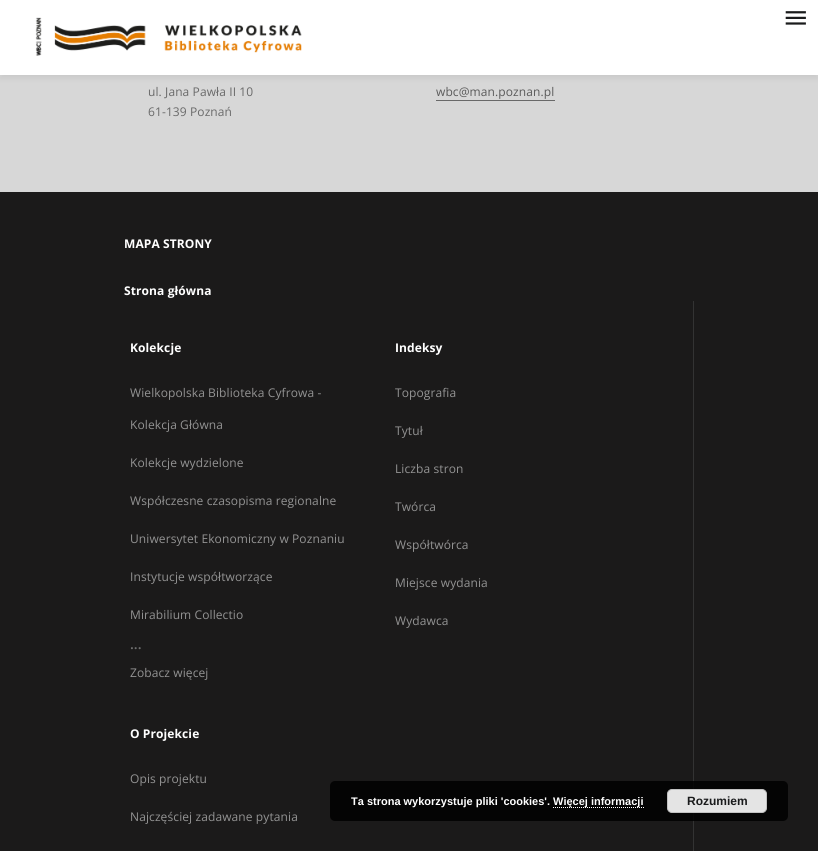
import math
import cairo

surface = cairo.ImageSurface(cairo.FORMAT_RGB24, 818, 851)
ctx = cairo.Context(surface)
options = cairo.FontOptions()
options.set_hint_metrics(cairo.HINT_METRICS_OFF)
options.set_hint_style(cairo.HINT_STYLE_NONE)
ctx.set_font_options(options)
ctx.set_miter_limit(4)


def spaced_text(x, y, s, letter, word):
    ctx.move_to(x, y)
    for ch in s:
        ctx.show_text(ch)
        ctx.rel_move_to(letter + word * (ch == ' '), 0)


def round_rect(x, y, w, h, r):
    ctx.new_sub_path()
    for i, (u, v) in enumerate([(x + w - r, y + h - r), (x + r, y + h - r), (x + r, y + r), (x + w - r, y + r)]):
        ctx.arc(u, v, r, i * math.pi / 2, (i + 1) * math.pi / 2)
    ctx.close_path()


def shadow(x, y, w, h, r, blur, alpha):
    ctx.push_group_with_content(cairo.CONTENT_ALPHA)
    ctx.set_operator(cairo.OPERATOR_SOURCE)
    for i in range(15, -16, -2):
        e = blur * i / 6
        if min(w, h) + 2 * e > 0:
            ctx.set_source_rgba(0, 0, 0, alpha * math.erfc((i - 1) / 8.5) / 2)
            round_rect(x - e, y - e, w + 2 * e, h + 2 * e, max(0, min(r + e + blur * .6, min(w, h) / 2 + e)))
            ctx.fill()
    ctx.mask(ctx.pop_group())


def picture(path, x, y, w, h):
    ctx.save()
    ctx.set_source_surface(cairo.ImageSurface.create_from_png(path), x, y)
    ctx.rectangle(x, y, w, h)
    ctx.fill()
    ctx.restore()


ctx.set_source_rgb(0.106, 0.102, 0.102)
ctx.paint()
ctx.set_source_rgb(0.843, 0.843, 0.843)
ctx.rectangle(0, 75, 818, 117)
ctx.fill()
ctx.set_source_rgb(0, 0, 0)
shadow(0, 4, 818, 75, 0, 2.5, 0.06)
ctx.set_source_rgb(1, 1, 1)
ctx.rectangle(0, 0, 818, 75)
ctx.fill()
picture("img1.png", 35, 17, 267, 39)
picture("img2.png", 785, 11, 21, 14)
ctx.select_font_face("Open Sans")
ctx.set_font_size(12)
ctx.set_source_rgb(0.412, 0.412, 0.412)
spaced_text(148, 96, "ul. Jana Pawła II 10", 0.1, 0)
spaced_text(148, 116, "61-139 Poznań", 0.1, 0)
ctx.set_source_rgb(0.353, 0.353, 0.353)
spaced_text(436, 96, "wbc@man.poznan.pl", 0.1, 0)
ctx.set_source_rgb(0.412, 0.412, 0.412)
ctx.rectangle(436, 100, 119, 1)
ctx.fill()
ctx.select_font_face("Open Sans", cairo.FONT_SLANT_NORMAL, cairo.FONT_WEIGHT_BOLD)
ctx.set_source_rgb(1, 1, 1)
spaced_text(124, 248, "MAPA STRONY", 0.1, 0)
spaced_text(124, 295, "Strona główna", 0.1, 0)
ctx.set_source_rgb(0.2, 0.2, 0.2)
ctx.rectangle(693, 301, 1, 550)
ctx.fill()
ctx.set_source_rgb(1, 1, 1)
spaced_text(130, 352, "Kolekcje", 0.1, 0)
ctx.select_font_face("Open Sans")
ctx.set_source_rgb(0.576, 0.576, 0.576)
spaced_text(130, 397, "Wielkopolska Biblioteka Cyfrowa -", 0.1, 0)
spaced_text(130, 429, "Kolekcja Główna", 0.1, 0)
spaced_text(130, 467, "Kolekcje wydzielone", 0.1, 0)
spaced_text(130, 505, "Współczesne czasopisma regionalne", 0.1, 0)
spaced_text(130, 543, "Uniwersytet Ekonomiczny w Poznaniu", 0.1, 0)
spaced_text(130, 581, "Instytucje współtworzące", 0.1, 0)
spaced_text(130, 619, "Mirabilium Collectio", 0.1, 0)
ctx.select_font_face("Open Sans SemiBold")
ctx.set_font_size(14)
ctx.set_source_rgb(0.439, 0.439, 0.439)
ctx.move_to(130, 649)
ctx.show_text("...")
ctx.select_font_face("Open Sans")
ctx.set_font_size(12)
ctx.set_source_rgb(0.576, 0.576, 0.576)
spaced_text(130, 677, "Zobacz więcej", 0.1, 0)
ctx.select_font_face("Open Sans", cairo.FONT_SLANT_NORMAL, cairo.FONT_WEIGHT_BOLD)
ctx.set_source_rgb(1, 1, 1)
spaced_text(395, 352, "Indeksy", 0.1, 0)
ctx.select_font_face("Open Sans")
ctx.set_source_rgb(0.576, 0.576, 0.576)
spaced_text(395, 397, "Topografia", 0.1, 0)
spaced_text(395, 435, "Tytuł", 0.1, 0)
spaced_text(395, 473, "Liczba stron", 0.1, 0)
spaced_text(395, 511, "Twórca", 0.1, 0)
spaced_text(395, 549, "Współtwórca", 0.1, 0)
spaced_text(395, 587, "Miejsce wydania", 0.1, 0)
spaced_text(395, 625, "Wydawca", 0.1, 0)
ctx.select_font_face("Open Sans", cairo.FONT_SLANT_NORMAL, cairo.FONT_WEIGHT_BOLD)
ctx.set_source_rgb(1, 1, 1)
spaced_text(130, 738, "O Projekcie", 0.1, 0)
ctx.select_font_face("Open Sans")
ctx.set_source_rgb(0.576, 0.576, 0.576)
spaced_text(130, 783, "Opis projektu", 0.1, 0)
spaced_text(130, 821, "Najczęściej zadawane pytania", 0.1, 0)
ctx.set_source_rgba(0, 0, 0, 0.85)
round_rect(330, 781, 458, 40, 5)
ctx.fill()
ctx.select_font_face("Liberation Sans", cairo.FONT_SLANT_NORMAL, cairo.FONT_WEIGHT_BOLD)
ctx.set_font_size(11)
ctx.set_source_rgb(1, 1, 1)
ctx.move_to(351, 805)
ctx.show_text("Ta strona wykorzystuje pliki 'cookies'.")
ctx.new_path()
ctx.move_to(553, 807.5)
ctx.line_to(644, 807.5)
ctx.set_line_width(1)
ctx.set_dash([1, 1])
ctx.stroke()
ctx.move_to(553, 805)
ctx.show_text("Więcej informacji")
ctx.set_source_rgb(0.894, 0.894, 0.894)
round_rect(667.5, 789.5, 99, 23, 4.5)
ctx.fill_preserve()
ctx.set_source_rgb(0.757, 0.757, 0.757)
ctx.set_dash([])
ctx.stroke()
ctx.set_font_size(12)
ctx.set_source_rgb(0.102, 0.106, 0.11)
ctx.move_to(687, 805)
ctx.show_text("Rozumiem")
surface.write_to_png("page.png")
